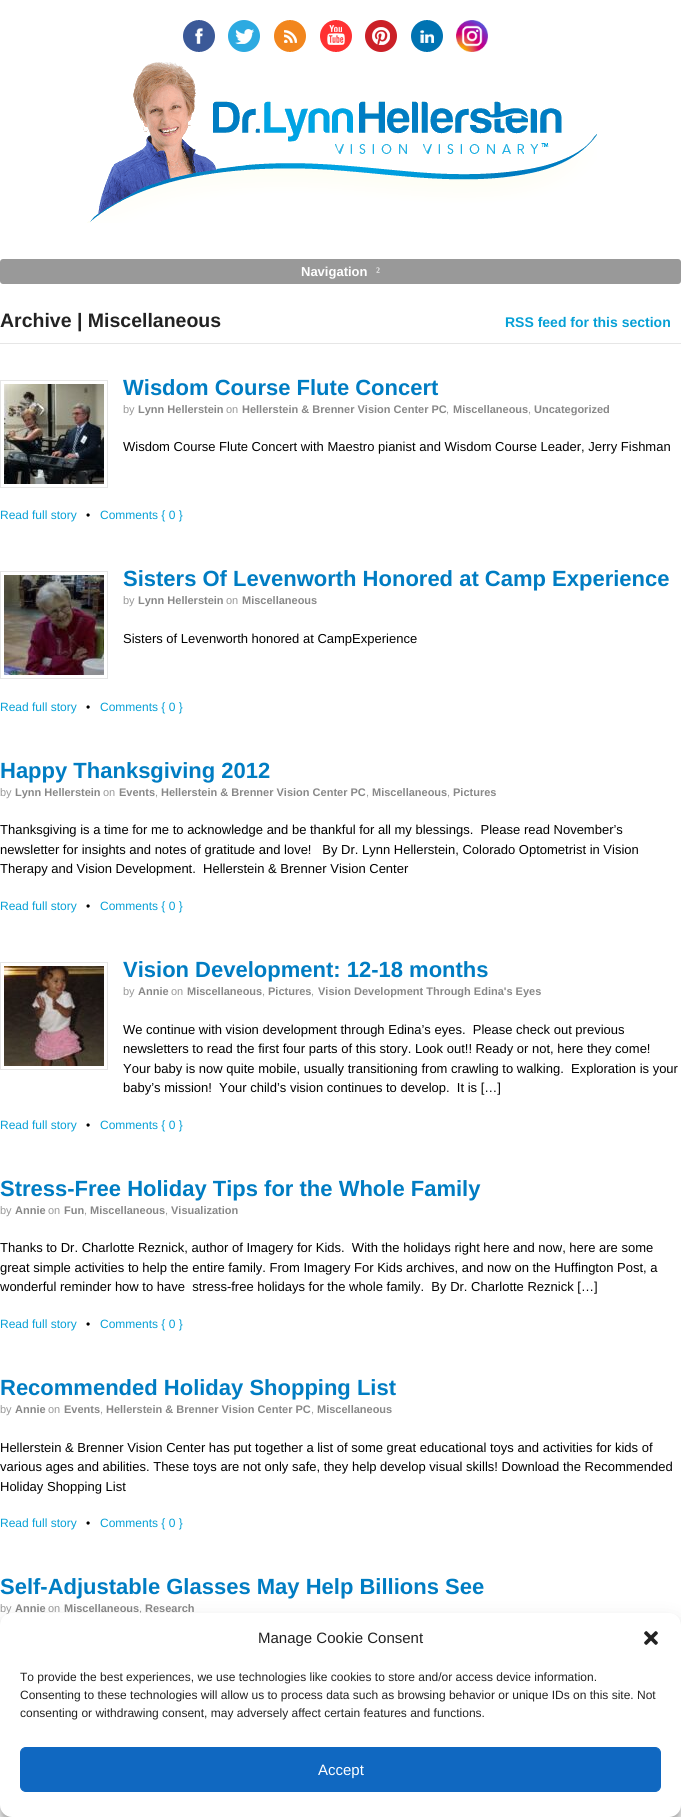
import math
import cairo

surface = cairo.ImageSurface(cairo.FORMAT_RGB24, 681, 1817)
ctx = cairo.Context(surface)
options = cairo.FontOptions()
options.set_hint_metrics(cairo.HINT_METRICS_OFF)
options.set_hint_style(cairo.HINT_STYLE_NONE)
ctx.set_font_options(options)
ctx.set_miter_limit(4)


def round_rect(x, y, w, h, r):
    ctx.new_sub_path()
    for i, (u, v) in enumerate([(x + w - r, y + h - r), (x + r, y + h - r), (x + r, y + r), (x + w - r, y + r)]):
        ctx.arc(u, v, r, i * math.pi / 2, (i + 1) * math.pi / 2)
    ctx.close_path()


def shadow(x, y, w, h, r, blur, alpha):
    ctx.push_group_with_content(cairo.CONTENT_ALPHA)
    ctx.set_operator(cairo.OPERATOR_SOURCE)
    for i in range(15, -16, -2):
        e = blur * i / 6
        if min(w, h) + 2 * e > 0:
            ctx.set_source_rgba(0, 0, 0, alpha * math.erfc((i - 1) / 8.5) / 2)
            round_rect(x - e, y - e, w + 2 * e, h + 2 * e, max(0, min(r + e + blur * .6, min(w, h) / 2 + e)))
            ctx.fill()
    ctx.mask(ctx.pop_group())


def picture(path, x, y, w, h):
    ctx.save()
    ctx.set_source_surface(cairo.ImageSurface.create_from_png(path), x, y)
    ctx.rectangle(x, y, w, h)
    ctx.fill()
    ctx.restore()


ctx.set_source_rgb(1, 1, 1)
ctx.paint()
picture("img1.png", 183, 20, 32, 32)
picture("img2.png", 228, 20, 32, 32)
picture("img3.png", 274, 20, 32, 32)
picture("img4.png", 320, 20, 32, 32)
picture("img5.png", 365, 20, 32, 32)
picture("img6.png", 411, 20, 32, 32)
picture("img7.png", 456, 20, 32, 32)
picture("img8.png", 87, 62, 510, 161)
ctx.set_source_rgb(0.6, 0.6, 0.6)
round_rect(0, 259, 681, 25, 3)
ctx.fill()
ctx.select_font_face("Liberation Sans", cairo.FONT_SLANT_NORMAL, cairo.FONT_WEIGHT_BOLD)
ctx.set_font_size(13)
ctx.set_source_rgb(1, 1, 1)
ctx.move_to(301, 276)
ctx.show_text("Navigation")
ctx.select_font_face("Liberation Serif")
ctx.move_to(376, 276)
ctx.show_text("²")
ctx.set_source_rgb(0.902, 0.902, 0.902)
ctx.rectangle(0, 343, 681, 1)
ctx.fill()
ctx.select_font_face("Liberation Sans", cairo.FONT_SLANT_NORMAL, cairo.FONT_WEIGHT_BOLD)
ctx.set_font_size(19.5)
ctx.set_source_rgb(0.133, 0.133, 0.133)
ctx.move_to(0, 327)
ctx.show_text("Archive | Miscellaneous")
ctx.set_font_size(14)
ctx.set_source_rgb(0.024, 0.627, 0.839)
ctx.move_to(505, 327)
ctx.show_text("RSS feed for this section")
ctx.rectangle(0.5, 380.5, 107, 107)
ctx.set_source_rgb(0.902, 0.902, 0.902)
ctx.set_line_width(1)
ctx.stroke()
picture("img9.png", 4, 384, 100, 100)
ctx.set_font_size(22)
ctx.set_source_rgb(0, 0.49, 0.765)
ctx.move_to(123, 395)
ctx.show_text("Wisdom Course Flute Concert")
ctx.select_font_face("Liberation Sans")
ctx.set_font_size(11)
ctx.set_source_rgb(0.6, 0.6, 0.6)
ctx.move_to(123, 413)
ctx.show_text("by")
ctx.select_font_face("Liberation Sans", cairo.FONT_SLANT_NORMAL, cairo.FONT_WEIGHT_BOLD)
ctx.set_source_rgb(0.533, 0.533, 0.533)
ctx.move_to(138, 413)
ctx.show_text("Lynn Hellerstein")
ctx.select_font_face("Liberation Sans")
ctx.set_source_rgb(0.6, 0.6, 0.6)
ctx.move_to(226, 413)
ctx.show_text("on")
ctx.select_font_face("Liberation Sans", cairo.FONT_SLANT_NORMAL, cairo.FONT_WEIGHT_BOLD)
ctx.set_source_rgb(0.533, 0.533, 0.533)
ctx.move_to(242, 413)
ctx.show_text("Hellerstein & Brenner Vision Center PC")
ctx.select_font_face("Liberation Sans")
ctx.set_source_rgb(0.6, 0.6, 0.6)
ctx.move_to(446, 413)
ctx.show_text(",")
ctx.select_font_face("Liberation Sans", cairo.FONT_SLANT_NORMAL, cairo.FONT_WEIGHT_BOLD)
ctx.set_source_rgb(0.533, 0.533, 0.533)
ctx.move_to(453, 413)
ctx.show_text("Miscellaneous")
ctx.select_font_face("Liberation Sans")
ctx.set_source_rgb(0.6, 0.6, 0.6)
ctx.move_to(528, 413)
ctx.show_text(",")
ctx.select_font_face("Liberation Sans", cairo.FONT_SLANT_NORMAL, cairo.FONT_WEIGHT_BOLD)
ctx.set_source_rgb(0.533, 0.533, 0.533)
ctx.move_to(534, 413)
ctx.show_text("Uncategorized")
ctx.select_font_face("Liberation Sans")
ctx.set_font_size(13)
ctx.set_source_rgb(0, 0, 0)
ctx.move_to(123, 451)
ctx.show_text("Wisdom Course Flute Concert with Maestro pianist and Wisdom Course Leader, Jerry Fishman")
ctx.set_font_size(12)
ctx.set_source_rgb(0.024, 0.627, 0.839)
ctx.move_to(0, 519)
ctx.show_text("Read full story")
ctx.set_source_rgb(0, 0, 0)
ctx.move_to(86, 519)
ctx.show_text("•")
ctx.set_source_rgb(0.024, 0.627, 0.839)
ctx.move_to(100, 519)
ctx.show_text("Comments { 0 }")
ctx.rectangle(0.5, 571.5, 107, 107)
ctx.set_source_rgb(0.902, 0.902, 0.902)
ctx.stroke()
picture("img10.png", 4, 575, 100, 100)
ctx.select_font_face("Liberation Sans", cairo.FONT_SLANT_NORMAL, cairo.FONT_WEIGHT_BOLD)
ctx.set_font_size(22)
ctx.set_source_rgb(0, 0.49, 0.765)
ctx.move_to(123, 586)
ctx.show_text("Sisters Of Levenworth Honored at Camp Experience")
ctx.select_font_face("Liberation Sans")
ctx.set_font_size(11)
ctx.set_source_rgb(0.6, 0.6, 0.6)
ctx.move_to(123, 604)
ctx.show_text("by")
ctx.select_font_face("Liberation Sans", cairo.FONT_SLANT_NORMAL, cairo.FONT_WEIGHT_BOLD)
ctx.set_source_rgb(0.533, 0.533, 0.533)
ctx.move_to(138, 604)
ctx.show_text("Lynn Hellerstein")
ctx.select_font_face("Liberation Sans")
ctx.set_source_rgb(0.6, 0.6, 0.6)
ctx.move_to(226, 604)
ctx.show_text("on")
ctx.select_font_face("Liberation Sans", cairo.FONT_SLANT_NORMAL, cairo.FONT_WEIGHT_BOLD)
ctx.set_source_rgb(0.533, 0.533, 0.533)
ctx.move_to(242, 604)
ctx.show_text("Miscellaneous")
ctx.select_font_face("Liberation Sans")
ctx.set_font_size(13)
ctx.set_source_rgb(0, 0, 0)
ctx.move_to(123, 643)
ctx.show_text("Sisters of Levenworth honored at CampExperience")
ctx.set_font_size(12)
ctx.set_source_rgb(0.024, 0.627, 0.839)
ctx.move_to(0, 711)
ctx.show_text("Read full story")
ctx.set_source_rgb(0, 0, 0)
ctx.move_to(86, 711)
ctx.show_text("•")
ctx.set_source_rgb(0.024, 0.627, 0.839)
ctx.move_to(100, 711)
ctx.show_text("Comments { 0 }")
ctx.select_font_face("Liberation Sans", cairo.FONT_SLANT_NORMAL, cairo.FONT_WEIGHT_BOLD)
ctx.set_font_size(22)
ctx.set_source_rgb(0, 0.49, 0.765)
ctx.move_to(0, 778)
ctx.show_text("Happy Thanksgiving 2012")
ctx.select_font_face("Liberation Sans")
ctx.set_font_size(11)
ctx.set_source_rgb(0.6, 0.6, 0.6)
ctx.move_to(0, 796)
ctx.show_text("by")
ctx.select_font_face("Liberation Sans", cairo.FONT_SLANT_NORMAL, cairo.FONT_WEIGHT_BOLD)
ctx.set_source_rgb(0.533, 0.533, 0.533)
ctx.move_to(15, 796)
ctx.show_text("Lynn Hellerstein")
ctx.select_font_face("Liberation Sans")
ctx.set_source_rgb(0.6, 0.6, 0.6)
ctx.move_to(103, 796)
ctx.show_text("on")
ctx.select_font_face("Liberation Sans", cairo.FONT_SLANT_NORMAL, cairo.FONT_WEIGHT_BOLD)
ctx.set_source_rgb(0.533, 0.533, 0.533)
ctx.move_to(119, 796)
ctx.show_text("Events")
ctx.select_font_face("Liberation Sans")
ctx.set_source_rgb(0.6, 0.6, 0.6)
ctx.move_to(155, 796)
ctx.show_text(",")
ctx.select_font_face("Liberation Sans", cairo.FONT_SLANT_NORMAL, cairo.FONT_WEIGHT_BOLD)
ctx.set_source_rgb(0.533, 0.533, 0.533)
ctx.move_to(161, 796)
ctx.show_text("Hellerstein & Brenner Vision Center PC")
ctx.select_font_face("Liberation Sans")
ctx.set_source_rgb(0.6, 0.6, 0.6)
ctx.move_to(366, 796)
ctx.show_text(",")
ctx.select_font_face("Liberation Sans", cairo.FONT_SLANT_NORMAL, cairo.FONT_WEIGHT_BOLD)
ctx.set_source_rgb(0.533, 0.533, 0.533)
ctx.move_to(372, 796)
ctx.show_text("Miscellaneous")
ctx.select_font_face("Liberation Sans")
ctx.set_source_rgb(0.6, 0.6, 0.6)
ctx.move_to(447, 796)
ctx.show_text(",")
ctx.select_font_face("Liberation Sans", cairo.FONT_SLANT_NORMAL, cairo.FONT_WEIGHT_BOLD)
ctx.set_source_rgb(0.533, 0.533, 0.533)
ctx.move_to(453, 796)
ctx.show_text("Pictures")
ctx.select_font_face("Liberation Sans")
ctx.set_font_size(13)
ctx.set_source_rgb(0, 0, 0)
ctx.move_to(0, 834)
ctx.show_text("Thanksgiving is a time for me to acknowledge and be thankful for all my blessings.  Please read November’s")
ctx.move_to(0, 854)
ctx.show_text("newsletter for insights and notes of gratitude and love!   By Dr. Lynn Hellerstein, Colorado Optometrist in Vision")
ctx.move_to(0, 873)
ctx.show_text("Therapy and Vision Development.  Hellerstein & Brenner Vision Center")
ctx.set_font_size(12)
ctx.set_source_rgb(0.024, 0.627, 0.839)
ctx.move_to(0, 910)
ctx.show_text("Read full story")
ctx.set_source_rgb(0, 0, 0)
ctx.move_to(86, 910)
ctx.show_text("•")
ctx.set_source_rgb(0.024, 0.627, 0.839)
ctx.move_to(100, 910)
ctx.show_text("Comments { 0 }")
ctx.rectangle(0.5, 962.5, 107, 107)
ctx.set_source_rgb(0.902, 0.902, 0.902)
ctx.stroke()
picture("img11.png", 4, 966, 100, 100)
ctx.select_font_face("Liberation Sans", cairo.FONT_SLANT_NORMAL, cairo.FONT_WEIGHT_BOLD)
ctx.set_font_size(22)
ctx.set_source_rgb(0, 0.49, 0.765)
ctx.move_to(123, 977)
ctx.show_text("Vision Development: 12-18 months")
ctx.select_font_face("Liberation Sans")
ctx.set_font_size(11)
ctx.set_source_rgb(0.6, 0.6, 0.6)
ctx.move_to(123, 995)
ctx.show_text("by")
ctx.select_font_face("Liberation Sans", cairo.FONT_SLANT_NORMAL, cairo.FONT_WEIGHT_BOLD)
ctx.set_source_rgb(0.533, 0.533, 0.533)
ctx.move_to(138, 995)
ctx.show_text("Annie")
ctx.select_font_face("Liberation Sans")
ctx.set_source_rgb(0.6, 0.6, 0.6)
ctx.move_to(171, 995)
ctx.show_text("on")
ctx.select_font_face("Liberation Sans", cairo.FONT_SLANT_NORMAL, cairo.FONT_WEIGHT_BOLD)
ctx.set_source_rgb(0.533, 0.533, 0.533)
ctx.move_to(187, 995)
ctx.show_text("Miscellaneous")
ctx.select_font_face("Liberation Sans")
ctx.set_source_rgb(0.6, 0.6, 0.6)
ctx.move_to(262, 995)
ctx.show_text(",")
ctx.select_font_face("Liberation Sans", cairo.FONT_SLANT_NORMAL, cairo.FONT_WEIGHT_BOLD)
ctx.set_source_rgb(0.533, 0.533, 0.533)
ctx.move_to(268, 995)
ctx.show_text("Pictures")
ctx.select_font_face("Liberation Sans")
ctx.set_source_rgb(0.6, 0.6, 0.6)
ctx.move_to(311, 995)
ctx.show_text(",")
ctx.select_font_face("Liberation Sans", cairo.FONT_SLANT_NORMAL, cairo.FONT_WEIGHT_BOLD)
ctx.set_source_rgb(0.533, 0.533, 0.533)
ctx.move_to(318, 995)
ctx.show_text("Vision Development Through Edina's Eyes")
ctx.select_font_face("Liberation Sans")
ctx.set_font_size(13)
ctx.set_source_rgb(0, 0, 0)
ctx.move_to(123, 1034)
ctx.show_text("We continue with vision development through Edina’s eyes.  Please check out previous")
ctx.move_to(123, 1053)
ctx.show_text("newsletters to read the first four parts of this story. Look out!! Ready or not, here they come!")
ctx.move_to(123, 1073)
ctx.show_text("Your baby is now quite mobile, usually transitioning from crawling to walking.  Exploration is your")
ctx.move_to(123, 1092)
ctx.show_text("baby’s mission!  Your child’s vision continues to develop.  It is […]")
ctx.set_font_size(12)
ctx.set_source_rgb(0.024, 0.627, 0.839)
ctx.move_to(0, 1129)
ctx.show_text("Read full story")
ctx.set_source_rgb(0, 0, 0)
ctx.move_to(86, 1129)
ctx.show_text("•")
ctx.set_source_rgb(0.024, 0.627, 0.839)
ctx.move_to(100, 1129)
ctx.show_text("Comments { 0 }")
ctx.select_font_face("Liberation Sans", cairo.FONT_SLANT_NORMAL, cairo.FONT_WEIGHT_BOLD)
ctx.set_font_size(22)
ctx.set_source_rgb(0, 0.49, 0.765)
ctx.move_to(0, 1196)
ctx.show_text("Stress-Free Holiday Tips for the Whole Family")
ctx.select_font_face("Liberation Sans")
ctx.set_font_size(11)
ctx.set_source_rgb(0.6, 0.6, 0.6)
ctx.move_to(0, 1214)
ctx.show_text("by")
ctx.select_font_face("Liberation Sans", cairo.FONT_SLANT_NORMAL, cairo.FONT_WEIGHT_BOLD)
ctx.set_source_rgb(0.533, 0.533, 0.533)
ctx.move_to(15, 1214)
ctx.show_text("Annie")
ctx.select_font_face("Liberation Sans")
ctx.set_source_rgb(0.6, 0.6, 0.6)
ctx.move_to(48, 1214)
ctx.show_text("on")
ctx.select_font_face("Liberation Sans", cairo.FONT_SLANT_NORMAL, cairo.FONT_WEIGHT_BOLD)
ctx.set_source_rgb(0.533, 0.533, 0.533)
ctx.move_to(64, 1214)
ctx.show_text("Fun")
ctx.select_font_face("Liberation Sans")
ctx.set_source_rgb(0.6, 0.6, 0.6)
ctx.move_to(84, 1214)
ctx.show_text(",")
ctx.select_font_face("Liberation Sans", cairo.FONT_SLANT_NORMAL, cairo.FONT_WEIGHT_BOLD)
ctx.set_source_rgb(0.533, 0.533, 0.533)
ctx.move_to(90, 1214)
ctx.show_text("Miscellaneous")
ctx.select_font_face("Liberation Sans")
ctx.set_source_rgb(0.6, 0.6, 0.6)
ctx.move_to(165, 1214)
ctx.show_text(",")
ctx.select_font_face("Liberation Sans", cairo.FONT_SLANT_NORMAL, cairo.FONT_WEIGHT_BOLD)
ctx.set_source_rgb(0.533, 0.533, 0.533)
ctx.move_to(171, 1214)
ctx.show_text("Visualization")
ctx.select_font_face("Liberation Sans")
ctx.set_font_size(13)
ctx.set_source_rgb(0, 0, 0)
ctx.move_to(0, 1252)
ctx.show_text("Thanks to Dr. Charlotte Reznick, author of Imagery for Kids.  With the holidays right here and now, here are some")
ctx.move_to(0, 1272)
ctx.show_text("great simple activities to help the entire family. From Imagery For Kids archives, and now on the Huffington Post, a")
ctx.move_to(0, 1291)
ctx.show_text("wonderful reminder how to have  stress-free holidays for the whole family.  By Dr. Charlotte Reznick […]")
ctx.set_font_size(12)
ctx.set_source_rgb(0.024, 0.627, 0.839)
ctx.move_to(0, 1328)
ctx.show_text("Read full story")
ctx.set_source_rgb(0, 0, 0)
ctx.move_to(86, 1328)
ctx.show_text("•")
ctx.set_source_rgb(0.024, 0.627, 0.839)
ctx.move_to(100, 1328)
ctx.show_text("Comments { 0 }")
ctx.select_font_face("Liberation Sans", cairo.FONT_SLANT_NORMAL, cairo.FONT_WEIGHT_BOLD)
ctx.set_font_size(22)
ctx.set_source_rgb(0, 0.49, 0.765)
ctx.move_to(0, 1395)
ctx.show_text("Recommended Holiday Shopping List")
ctx.select_font_face("Liberation Sans")
ctx.set_font_size(11)
ctx.set_source_rgb(0.6, 0.6, 0.6)
ctx.move_to(0, 1413)
ctx.show_text("by")
ctx.select_font_face("Liberation Sans", cairo.FONT_SLANT_NORMAL, cairo.FONT_WEIGHT_BOLD)
ctx.set_source_rgb(0.533, 0.533, 0.533)
ctx.move_to(15, 1413)
ctx.show_text("Annie")
ctx.select_font_face("Liberation Sans")
ctx.set_source_rgb(0.6, 0.6, 0.6)
ctx.move_to(48, 1413)
ctx.show_text("on")
ctx.select_font_face("Liberation Sans", cairo.FONT_SLANT_NORMAL, cairo.FONT_WEIGHT_BOLD)
ctx.set_source_rgb(0.533, 0.533, 0.533)
ctx.move_to(64, 1413)
ctx.show_text("Events")
ctx.select_font_face("Liberation Sans")
ctx.set_source_rgb(0.6, 0.6, 0.6)
ctx.move_to(100, 1413)
ctx.show_text(",")
ctx.select_font_face("Liberation Sans", cairo.FONT_SLANT_NORMAL, cairo.FONT_WEIGHT_BOLD)
ctx.set_source_rgb(0.533, 0.533, 0.533)
ctx.move_to(106, 1413)
ctx.show_text("Hellerstein & Brenner Vision Center PC")
ctx.select_font_face("Liberation Sans")
ctx.set_source_rgb(0.6, 0.6, 0.6)
ctx.move_to(311, 1413)
ctx.show_text(",")
ctx.select_font_face("Liberation Sans", cairo.FONT_SLANT_NORMAL, cairo.FONT_WEIGHT_BOLD)
ctx.set_source_rgb(0.533, 0.533, 0.533)
ctx.move_to(317, 1413)
ctx.show_text("Miscellaneous")
ctx.select_font_face("Liberation Sans")
ctx.set_font_size(13)
ctx.set_source_rgb(0, 0, 0)
ctx.move_to(0, 1452)
ctx.show_text("Hellerstein & Brenner Vision Center has put together a list of some great educational toys and activities for kids of")
ctx.move_to(0, 1471)
ctx.show_text("various ages and abilities. These toys are not only safe, they help develop visual skills! Download the Recommended")
ctx.move_to(0, 1491)
ctx.show_text("Holiday Shopping List")
ctx.set_font_size(12)
ctx.set_source_rgb(0.024, 0.627, 0.839)
ctx.move_to(0, 1527)
ctx.show_text("Read full story")
ctx.set_source_rgb(0, 0, 0)
ctx.move_to(86, 1527)
ctx.show_text("•")
ctx.set_source_rgb(0.024, 0.627, 0.839)
ctx.move_to(100, 1527)
ctx.show_text("Comments { 0 }")
ctx.select_font_face("Liberation Sans", cairo.FONT_SLANT_NORMAL, cairo.FONT_WEIGHT_BOLD)
ctx.set_font_size(22)
ctx.set_source_rgb(0, 0.49, 0.765)
ctx.move_to(0, 1594)
ctx.show_text("Self-Adjustable Glasses May Help Billions See")
ctx.select_font_face("Liberation Sans")
ctx.set_font_size(11)
ctx.set_source_rgb(0.6, 0.6, 0.6)
ctx.move_to(0, 1612)
ctx.show_text("by")
ctx.select_font_face("Liberation Sans", cairo.FONT_SLANT_NORMAL, cairo.FONT_WEIGHT_BOLD)
ctx.set_source_rgb(0.533, 0.533, 0.533)
ctx.move_to(15, 1612)
ctx.show_text("Annie")
ctx.select_font_face("Liberation Sans")
ctx.set_source_rgb(0.6, 0.6, 0.6)
ctx.move_to(48, 1612)
ctx.show_text("on")
ctx.select_font_face("Liberation Sans", cairo.FONT_SLANT_NORMAL, cairo.FONT_WEIGHT_BOLD)
ctx.set_source_rgb(0.533, 0.533, 0.533)
ctx.move_to(64, 1612)
ctx.show_text("Miscellaneous")
ctx.select_font_face("Liberation Sans")
ctx.set_source_rgb(0.6, 0.6, 0.6)
ctx.move_to(139, 1612)
ctx.show_text(",")
ctx.select_font_face("Liberation Sans", cairo.FONT_SLANT_NORMAL, cairo.FONT_WEIGHT_BOLD)
ctx.set_source_rgb(0.533, 0.533, 0.533)
ctx.move_to(145, 1612)
ctx.show_text("Research")
ctx.set_source_rgb(0, 0, 0)
shadow(0, 1619, 681, 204, 12, 3, 0.23)
shadow(0, 1623, 681, 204, 12, 10, 0.19)
ctx.set_source_rgb(1, 1, 1)
round_rect(0, 1613, 681, 204, 12)
ctx.fill()
ctx.select_font_face("Liberation Sans")
ctx.set_font_size(15)
ctx.set_source_rgb(0.133, 0.133, 0.133)
ctx.move_to(258, 1643)
ctx.show_text("Manage Cookie Consent")
picture("img12.png", 644, 1631, 14, 14)
ctx.set_font_size(12)
ctx.move_to(20, 1681)
ctx.show_text("To provide the best experiences, we use technologies like cookies to store and/or access device information.")
ctx.move_to(20, 1699)
ctx.show_text("Consenting to these technologies will allow us to process data such as browsing behavior or unique IDs on this site. Not")
ctx.move_to(20, 1717)
ctx.show_text("consenting or withdrawing consent, may adversely affect certain features and functions.")
ctx.set_source_rgb(0.063, 0.408, 0.757)
round_rect(20.5, 1747.5, 640, 44, 5.5)
ctx.fill_preserve()
ctx.stroke()
ctx.set_font_size(15)
ctx.set_source_rgb(1, 1, 1)
ctx.move_to(318, 1775)
ctx.show_text("Accept")
surface.write_to_png("page.png")
